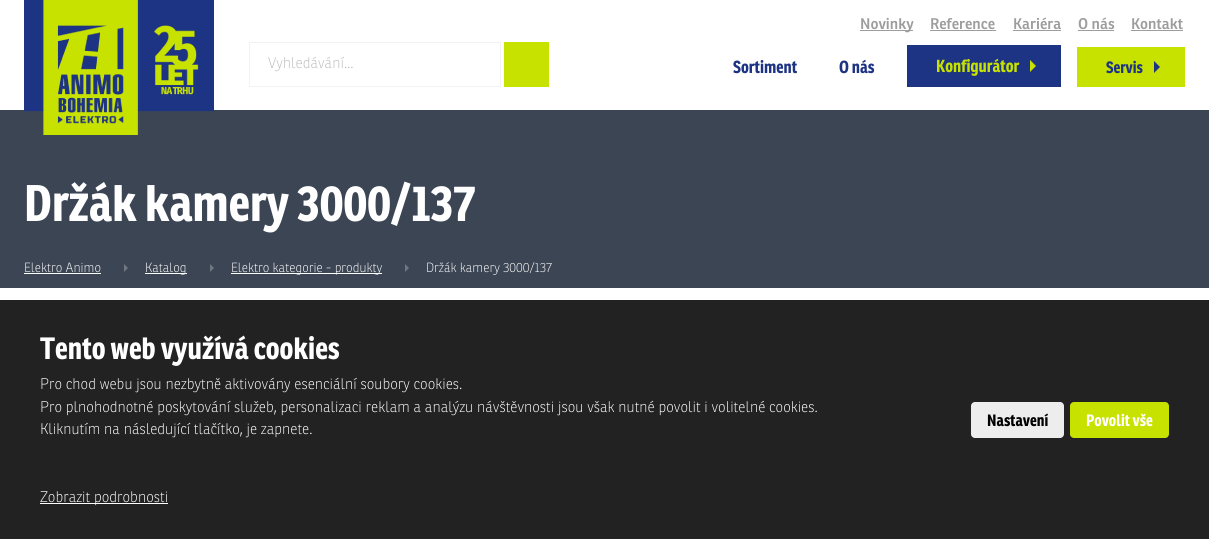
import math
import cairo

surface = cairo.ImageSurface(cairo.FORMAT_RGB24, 1209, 539)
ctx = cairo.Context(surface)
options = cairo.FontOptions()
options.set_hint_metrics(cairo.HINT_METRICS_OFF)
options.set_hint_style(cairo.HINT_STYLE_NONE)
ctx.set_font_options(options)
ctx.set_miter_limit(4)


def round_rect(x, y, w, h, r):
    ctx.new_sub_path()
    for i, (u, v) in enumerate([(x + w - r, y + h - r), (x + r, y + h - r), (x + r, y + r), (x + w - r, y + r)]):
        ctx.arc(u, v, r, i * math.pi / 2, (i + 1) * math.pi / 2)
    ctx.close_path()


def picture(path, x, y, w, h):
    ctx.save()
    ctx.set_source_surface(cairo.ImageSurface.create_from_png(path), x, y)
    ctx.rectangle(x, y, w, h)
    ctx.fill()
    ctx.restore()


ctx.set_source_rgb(1, 1, 1)
ctx.paint()
ctx.set_source_rgb(0.235, 0.271, 0.329)
ctx.rectangle(0, 110, 1209, 178)
ctx.fill()
picture("img1.png", 24, 0, 190, 135)
ctx.set_source_rgb(0.616, 0.616, 0.616)
ctx.rectangle(860, 30, 53, 1)
ctx.fill()
ctx.select_font_face("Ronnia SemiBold")
ctx.set_font_size(15)
ctx.move_to(860, 29)
ctx.show_text("Novinky")
ctx.move_to(930, 29)
ctx.show_text("Reference")
ctx.rectangle(930, 30, 66, 1)
ctx.fill()
ctx.move_to(1013, 29)
ctx.show_text("Kariéra")
ctx.rectangle(1013, 30, 48, 1)
ctx.fill()
ctx.move_to(1078, 29)
ctx.show_text("O nás")
ctx.rectangle(1078, 30, 36, 1)
ctx.fill()
ctx.move_to(1131, 29)
ctx.show_text("Kontakt")
ctx.rectangle(1131, 30, 52, 1)
ctx.fill()
ctx.rectangle(249.5, 42.5, 251, 44)
ctx.set_source_rgb(0.949, 0.949, 0.949)
ctx.set_line_width(1)
ctx.stroke()
ctx.select_font_face("Ronnia Thin")
ctx.set_source_rgb(0.737, 0.737, 0.737)
ctx.move_to(268, 68)
ctx.show_text("Vyhledávání...")
ctx.set_source_rgb(0.784, 0.886, 0)
ctx.rectangle(504, 42, 45, 45)
ctx.fill()
ctx.select_font_face("Ronnia", cairo.FONT_SLANT_NORMAL, cairo.FONT_WEIGHT_BOLD)
ctx.set_font_size(17)
ctx.set_source_rgb(0.114, 0.2, 0.514)
ctx.move_to(733, 73)
ctx.show_text("Sortiment")
ctx.move_to(839, 73)
ctx.show_text("O nás")
ctx.rectangle(907, 45, 154, 42)
ctx.fill()
ctx.set_source_rgb(0.784, 0.886, 0)
ctx.move_to(936, 72)
ctx.show_text("Konfigurátor")
ctx.new_path()
ctx.move_to(1030, 72)
ctx.line_to(1030, 60)
ctx.line_to(1036, 66)
ctx.close_path()
ctx.fill()
ctx.rectangle(1077, 47, 108, 40)
ctx.fill()
ctx.set_font_size(16)
ctx.set_source_rgb(0.114, 0.2, 0.514)
ctx.move_to(1106, 73)
ctx.show_text("Servis")
ctx.new_path()
ctx.move_to(1154, 73)
ctx.line_to(1154, 61)
ctx.line_to(1160, 67)
ctx.close_path()
ctx.fill()
ctx.set_font_size(50)
ctx.set_source_rgb(1, 1, 1)
ctx.move_to(24, 221)
ctx.show_text("Držák kamery 3000/137")
ctx.select_font_face("Ronnia Thin")
ctx.set_font_size(13)
ctx.move_to(24, 272)
ctx.show_text("Elektro Animo")
ctx.rectangle(24, 273, 77, 1)
ctx.fill()
ctx.set_source_rgb(0.439, 0.467, 0.502)
ctx.new_path()
ctx.move_to(124, 272)
ctx.line_to(124, 264)
ctx.line_to(128, 268)
ctx.close_path()
ctx.fill()
ctx.set_source_rgb(1, 1, 1)
ctx.rectangle(145, 273, 42, 1)
ctx.fill()
ctx.move_to(145, 272)
ctx.show_text("Katalog")
ctx.set_source_rgb(0.439, 0.467, 0.502)
ctx.new_path()
ctx.move_to(210, 272)
ctx.line_to(210, 264)
ctx.line_to(214, 268)
ctx.close_path()
ctx.fill()
ctx.set_source_rgb(1, 1, 1)
ctx.rectangle(231, 273, 151, 1)
ctx.fill()
ctx.move_to(231, 272)
ctx.show_text("Elektro kategorie - produkty")
ctx.set_source_rgb(0.439, 0.467, 0.502)
ctx.new_path()
ctx.move_to(405, 272)
ctx.line_to(405, 264)
ctx.line_to(409, 268)
ctx.close_path()
ctx.fill()
ctx.set_source_rgb(1, 1, 1)
ctx.move_to(426, 272)
ctx.show_text("Držák kamery 3000/137")
ctx.set_source_rgb(0.133, 0.133, 0.133)
ctx.rectangle(0, 300, 1209, 239)
ctx.fill()
ctx.select_font_face("Ronnia", cairo.FONT_SLANT_NORMAL, cairo.FONT_WEIGHT_BOLD)
ctx.set_font_size(30)
ctx.set_source_rgb(1, 1, 1)
ctx.move_to(40, 359)
ctx.show_text("Tento web využívá cookies")
ctx.select_font_face("Ronnia Thin")
ctx.set_font_size(15)
ctx.move_to(40, 389)
ctx.show_text("Pro chod webu jsou nezbytně aktivovány esenciální soubory cookies.")
ctx.move_to(40, 412)
ctx.show_text("Pro plnohodnotné poskytování služeb, personalizaci reklam a analýzu návštěvnosti jsou však nutné povolit i volitelné cookies.")
ctx.move_to(40, 434)
ctx.show_text("Kliknutím na následující tlačítko, je zapnete.")
ctx.rectangle(40, 503, 128, 1)
ctx.fill()
ctx.move_to(40, 502)
ctx.show_text("Zobrazit podrobnosti")
ctx.set_source_rgb(0.929, 0.929, 0.929)
round_rect(971, 402, 93, 36, 4)
ctx.fill()
ctx.select_font_face("Ronnia", cairo.FONT_SLANT_NORMAL, cairo.FONT_WEIGHT_BOLD)
ctx.set_font_size(16)
ctx.set_source_rgb(0, 0, 0)
ctx.move_to(987, 426)
ctx.show_text("Nastavení")
ctx.set_source_rgb(0.784, 0.886, 0)
round_rect(1070, 402, 99, 36, 4)
ctx.fill()
ctx.set_source_rgb(1, 1, 1)
ctx.move_to(1086, 426)
ctx.show_text("Povolit vše")
surface.write_to_png("page.png")
